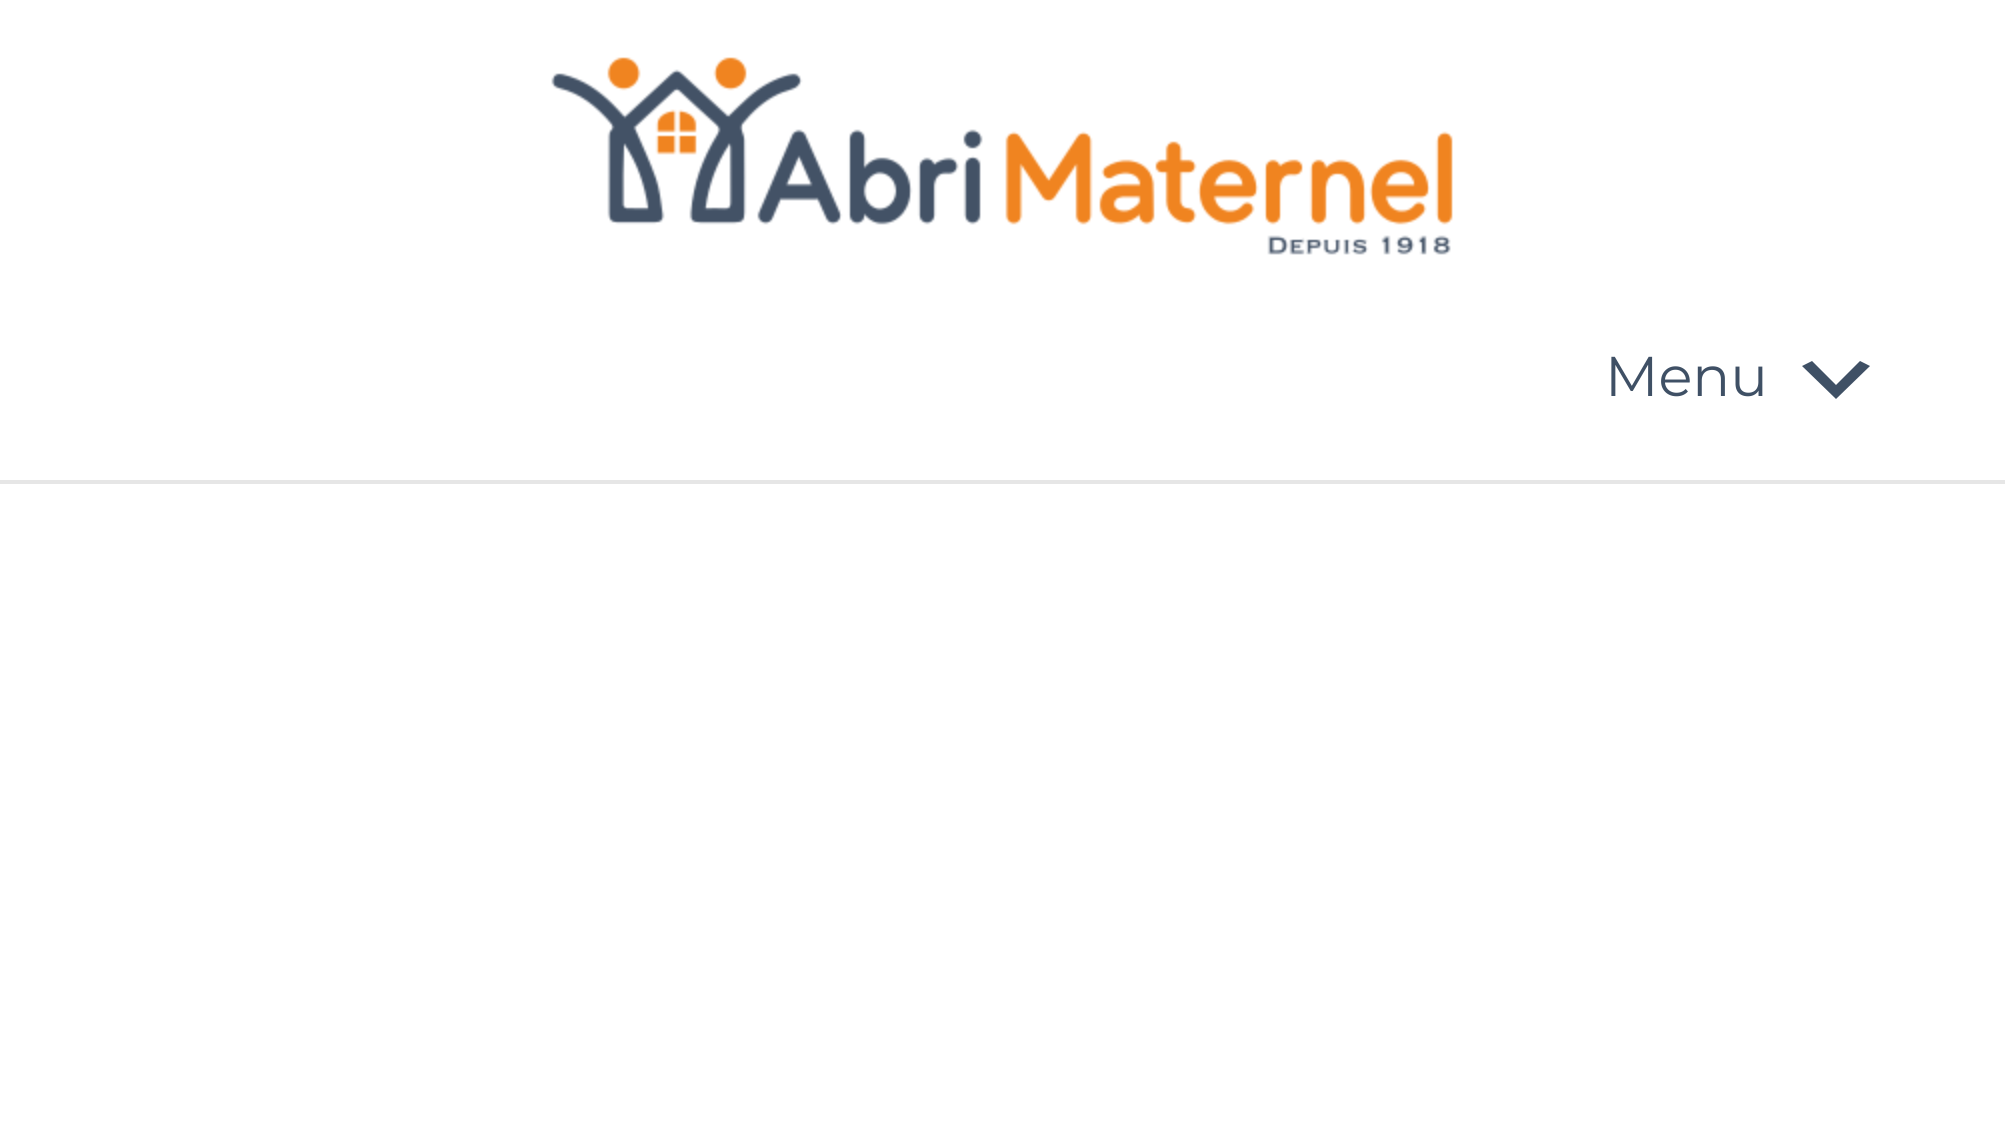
import math
import cairo

surface = cairo.ImageSurface(cairo.FORMAT_RGB24, 2005, 1132)
ctx = cairo.Context(surface)
options = cairo.FontOptions()
options.set_hint_metrics(cairo.HINT_METRICS_OFF)
options.set_hint_style(cairo.HINT_STYLE_NONE)
ctx.set_font_options(options)
ctx.set_miter_limit(4)


def picture(path, x, y, w, h):
    ctx.save()
    ctx.set_source_surface(cairo.ImageSurface.create_from_png(path), x, y)
    ctx.rectangle(x, y, w, h)
    ctx.fill()
    ctx.restore()


ctx.set_source_rgb(1, 1, 1)
ctx.paint()
ctx.set_source_rgb(0.902, 0.902, 0.902)
ctx.rectangle(0, 480, 2005, 4)
ctx.fill()
picture("img1.png", 551, 57, 902, 198)
ctx.select_font_face("Montserrat")
ctx.set_font_size(56)
ctx.set_source_rgb(0.247, 0.314, 0.396)
ctx.move_to(1605, 396)
ctx.show_text("Menu")
ctx.new_path()
ctx.move_to(1812, 361)
ctx.line_to(1836, 385)
ctx.line_to(1860, 361)
ctx.line_to(1870, 366)
ctx.line_to(1836, 399)
ctx.line_to(1802, 366)
ctx.close_path()
ctx.fill()
surface.write_to_png("page.png")
